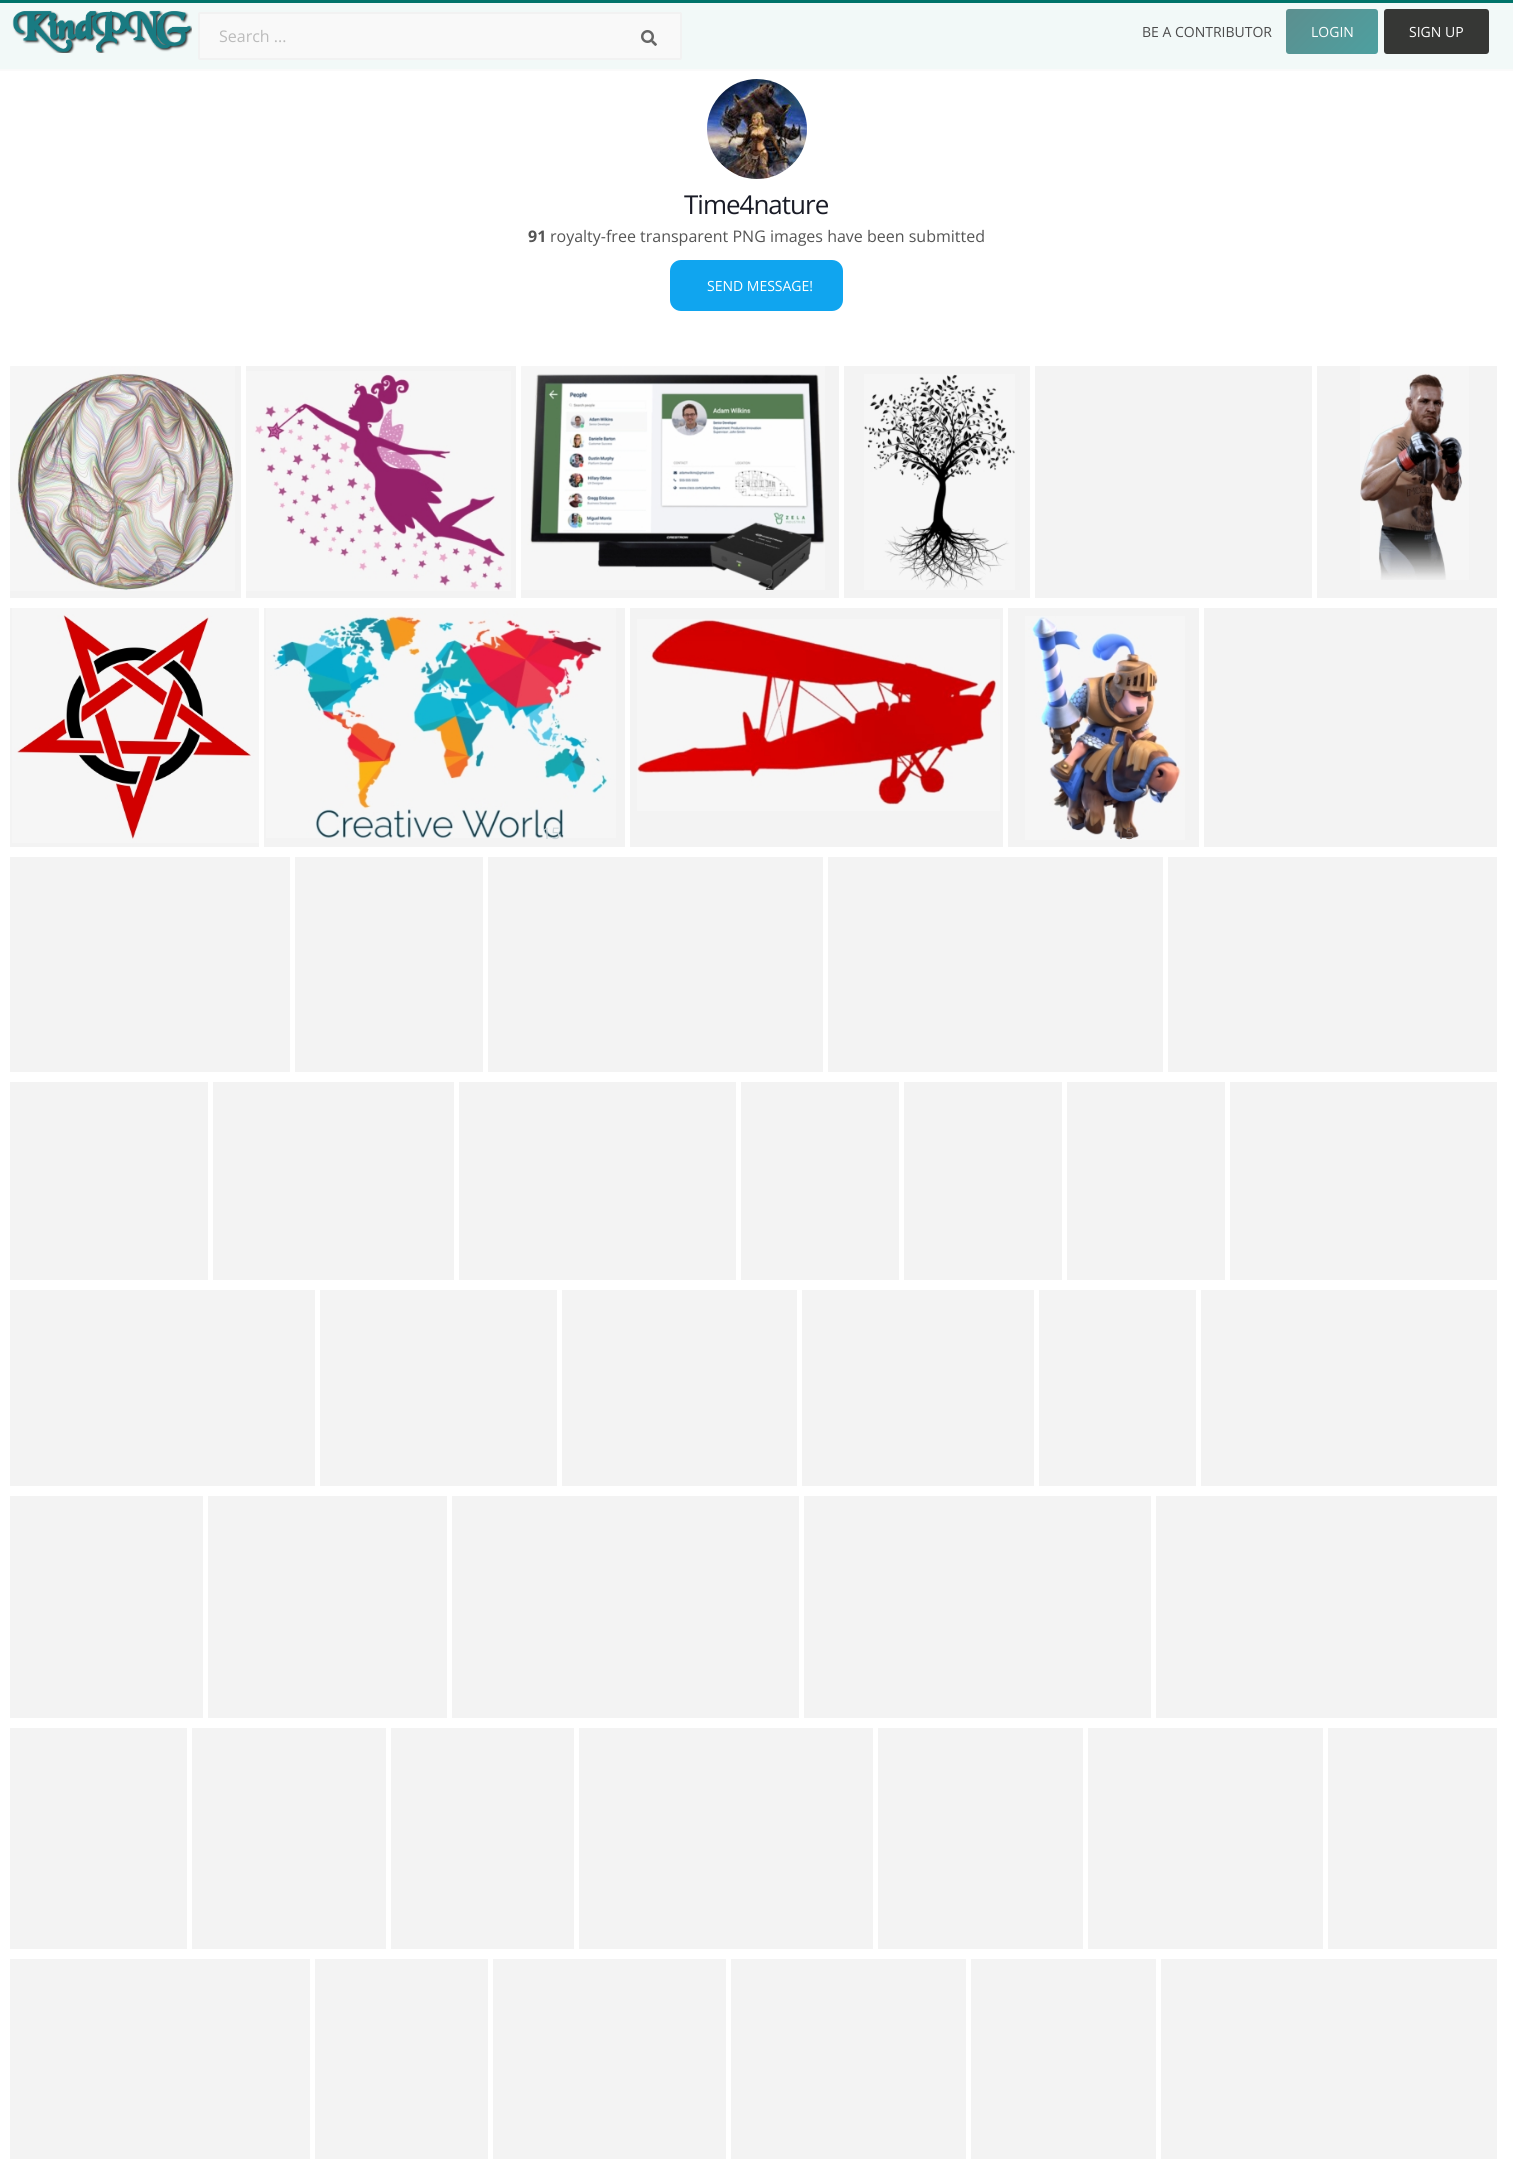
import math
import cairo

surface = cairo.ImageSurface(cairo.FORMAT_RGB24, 1513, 2159)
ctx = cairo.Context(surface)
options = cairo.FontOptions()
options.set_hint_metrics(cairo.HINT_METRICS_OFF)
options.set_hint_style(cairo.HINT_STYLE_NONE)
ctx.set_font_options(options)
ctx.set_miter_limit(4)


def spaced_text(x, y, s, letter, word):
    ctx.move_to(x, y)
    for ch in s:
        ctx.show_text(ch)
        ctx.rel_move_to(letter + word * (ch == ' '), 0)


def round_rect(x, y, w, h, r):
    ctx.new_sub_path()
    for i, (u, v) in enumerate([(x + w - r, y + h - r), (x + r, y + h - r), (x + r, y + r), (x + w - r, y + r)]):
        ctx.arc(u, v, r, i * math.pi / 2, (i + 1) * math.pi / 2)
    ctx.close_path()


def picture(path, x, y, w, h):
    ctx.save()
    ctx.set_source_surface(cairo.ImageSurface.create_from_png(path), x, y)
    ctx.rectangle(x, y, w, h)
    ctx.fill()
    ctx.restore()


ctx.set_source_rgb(1, 1, 1)
ctx.paint()
ctx.set_source_rgb(0.949, 0.973, 0.969)
ctx.rectangle(0, 3, 1513, 66)
ctx.fill()
ctx.set_source_rgb(0, 0.455, 0.416)
ctx.rectangle(0, 0, 1513, 3)
ctx.fill()
ctx.set_source_rgb(0.98, 0.98, 0.98)
ctx.rectangle(0, 69, 1513, 2)
ctx.fill()
picture("img1.png", 12, 10, 180, 43)
ctx.set_source_rgb(0.976, 0.976, 0.976)
round_rect(199, 13, 482, 46, 1)
ctx.fill_preserve()
ctx.set_source_rgb(0.949, 0.949, 0.949)
ctx.stroke()
ctx.select_font_face("Open Sans")
ctx.set_font_size(16)
ctx.set_source_rgb(0.733, 0.733, 0.733)
ctx.move_to(219, 42)
ctx.show_text("Search ...")
picture("img2.png", 641, 30, 16, 16)
ctx.set_font_size(14)
ctx.set_source_rgb(0.294, 0.294, 0.294)
ctx.move_to(1142, 37)
ctx.show_text("BE A CONTRIBUTOR")
gradient = cairo.LinearGradient(1298, -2.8, 1366, 66)
gradient.add_color_stop_rgba(0, 0.361, 0.561, 0.561, 1)
gradient.add_color_stop_rgba(1, 0.302, 0.627, 0.627, 1)
ctx.set_source(gradient)
round_rect(1286, 9, 92, 45, 3)
ctx.fill()
ctx.set_source_rgb(1, 1, 1)
ctx.move_to(1311, 37)
ctx.show_text("LOGIN")
ctx.set_source_rgb(0.212, 0.216, 0.208)
round_rect(1384, 9, 105, 45, 3)
ctx.fill()
ctx.set_source_rgb(1, 1, 1)
ctx.move_to(1409, 37)
ctx.show_text("SIGN UP")
picture("img3.png", 707, 79, 100, 100)
ctx.set_font_size(26)
ctx.set_source_rgb(0.098, 0.106, 0.149)
spaced_text(684, 214, "Time4nature", -1, 0)
ctx.select_font_face("Open Sans", cairo.FONT_SLANT_NORMAL, cairo.FONT_WEIGHT_BOLD)
ctx.set_font_size(16)
ctx.set_source_rgb(0.333, 0.333, 0.333)
ctx.move_to(528, 242)
ctx.show_text("91")
ctx.select_font_face("Open Sans")
ctx.move_to(550, 242)
ctx.show_text("royalty-free transparent PNG images have been submitted")
ctx.set_source_rgb(0.063, 0.647, 0.937)
round_rect(670, 260, 173, 51, 11)
ctx.fill()
ctx.set_font_size(14)
ctx.set_source_rgb(1, 1, 1)
ctx.move_to(707, 291)
ctx.show_text("SEND MESSAGE!")
ctx.set_source_rgb(0.953, 0.953, 0.953)
ctx.rectangle(10, 366, 231, 232)
ctx.fill()
picture("img4.png", 10, 366, 225, 225)
ctx.rectangle(246, 366, 270, 232)
ctx.fill()
picture("img5.png", 246, 371, 265, 220)
ctx.rectangle(521, 366, 318, 232)
ctx.fill()
picture("img6.png", 521, 366, 304, 224)
ctx.set_font_size(16)
ctx.set_source_rgb(0.333, 0.333, 0.333)
ctx.move_to(765, 590)
ctx.show_text("2")
ctx.set_source_rgb(0.953, 0.953, 0.953)
ctx.rectangle(844, 366, 186, 232)
ctx.fill()
picture("img7.png", 864, 374, 151, 216)
ctx.rectangle(1035, 366, 277, 232)
ctx.fill()
ctx.rectangle(1317, 366, 180, 232)
ctx.fill()
picture("img8.png", 1360, 366, 109, 214)
ctx.rectangle(10, 608, 249, 239)
ctx.fill()
picture("img9.png", 12, 608, 247, 235)
ctx.rectangle(264, 608, 361, 239)
ctx.fill()
picture("img10.png", 266, 608, 350, 230)
ctx.set_source_rgb(0.792, 0.831, 0.843)
ctx.move_to(542, 839)
ctx.show_text("15")
ctx.set_source_rgb(0.953, 0.953, 0.953)
ctx.rectangle(630, 608, 373, 239)
ctx.fill()
picture("img11.png", 637, 619, 363, 192)
ctx.rectangle(1008, 608, 191, 239)
ctx.fill()
picture("img12.png", 1025, 616, 160, 224)
ctx.set_source_rgb(0.459, 0.373, 0.341)
ctx.move_to(1116, 839)
ctx.show_text("15")
ctx.set_source_rgb(0.953, 0.953, 0.953)
ctx.rectangle(1204, 608, 293, 239)
ctx.fill()
ctx.rectangle(10, 857, 280, 215)
ctx.fill()
ctx.rectangle(295, 857, 188, 215)
ctx.fill()
ctx.rectangle(488, 857, 335, 215)
ctx.fill()
ctx.rectangle(828, 857, 335, 215)
ctx.fill()
ctx.rectangle(1168, 857, 329, 215)
ctx.fill()
ctx.rectangle(10, 1082, 198, 198)
ctx.fill()
ctx.rectangle(213, 1082, 241, 198)
ctx.fill()
ctx.rectangle(459, 1082, 277, 198)
ctx.fill()
ctx.rectangle(741, 1082, 158, 198)
ctx.fill()
ctx.rectangle(904, 1082, 158, 198)
ctx.fill()
ctx.rectangle(1067, 1082, 158, 198)
ctx.fill()
ctx.rectangle(1230, 1082, 267, 198)
ctx.fill()
ctx.rectangle(10, 1290, 305, 196)
ctx.fill()
ctx.rectangle(320, 1290, 237, 196)
ctx.fill()
ctx.rectangle(562, 1290, 235, 196)
ctx.fill()
ctx.rectangle(802, 1290, 232, 196)
ctx.fill()
ctx.rectangle(1039, 1290, 157, 196)
ctx.fill()
ctx.rectangle(1201, 1290, 296, 196)
ctx.fill()
ctx.rectangle(10, 1496, 193, 222)
ctx.fill()
ctx.rectangle(208, 1496, 239, 222)
ctx.fill()
ctx.rectangle(452, 1496, 347, 222)
ctx.fill()
ctx.rectangle(804, 1496, 347, 222)
ctx.fill()
ctx.rectangle(1156, 1496, 341, 222)
ctx.fill()
ctx.rectangle(10, 1728, 177, 221)
ctx.fill()
ctx.rectangle(192, 1728, 194, 221)
ctx.fill()
ctx.rectangle(391, 1728, 183, 221)
ctx.fill()
ctx.rectangle(579, 1728, 294, 221)
ctx.fill()
ctx.rectangle(878, 1728, 205, 221)
ctx.fill()
ctx.rectangle(1088, 1728, 235, 221)
ctx.fill()
ctx.rectangle(1328, 1728, 169, 221)
ctx.fill()
ctx.rectangle(10, 1959, 300, 200)
ctx.fill()
ctx.rectangle(315, 1959, 173, 200)
ctx.fill()
ctx.rectangle(493, 1959, 233, 200)
ctx.fill()
ctx.rectangle(731, 1959, 235, 200)
ctx.fill()
ctx.rectangle(971, 1959, 185, 200)
ctx.fill()
ctx.rectangle(1161, 1959, 336, 200)
ctx.fill()
surface.write_to_png("page.png")
